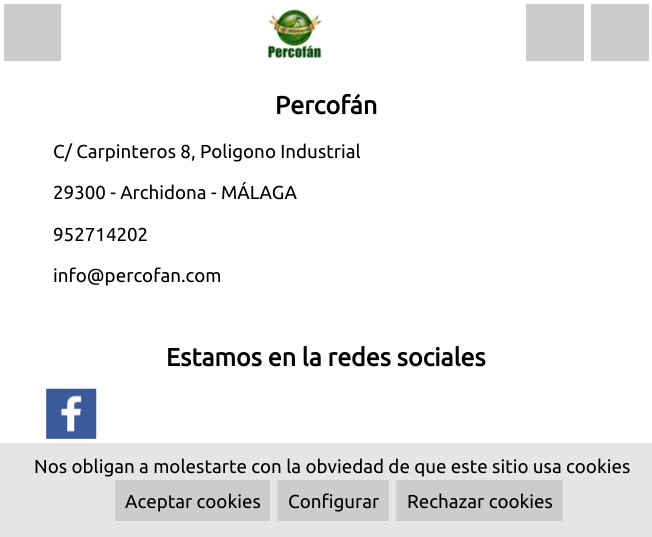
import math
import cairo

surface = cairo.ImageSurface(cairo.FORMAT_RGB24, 652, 537)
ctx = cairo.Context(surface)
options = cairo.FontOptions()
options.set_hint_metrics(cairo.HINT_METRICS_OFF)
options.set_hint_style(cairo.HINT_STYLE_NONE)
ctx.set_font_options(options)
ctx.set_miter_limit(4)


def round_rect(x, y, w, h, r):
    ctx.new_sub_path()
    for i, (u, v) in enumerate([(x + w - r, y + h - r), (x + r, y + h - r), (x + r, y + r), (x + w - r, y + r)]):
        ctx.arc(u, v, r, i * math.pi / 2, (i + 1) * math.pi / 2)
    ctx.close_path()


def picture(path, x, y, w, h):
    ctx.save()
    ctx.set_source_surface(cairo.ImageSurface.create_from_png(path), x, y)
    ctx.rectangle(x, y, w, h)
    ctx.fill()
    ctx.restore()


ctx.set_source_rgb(1, 1, 1)
ctx.paint()
ctx.set_source_rgb(0.8, 0.8, 0.8)
ctx.rectangle(14, 14, 37, 37)
ctx.fill()
ctx.new_path()
ctx.move_to(9, 9)
ctx.line_to(56, 9)
ctx.line_to(56, 56)
ctx.line_to(9, 56)
ctx.close_path()
ctx.set_line_width(10)
ctx.stroke()
picture("img1.png", 266, 8, 56, 52)
ctx.rectangle(536, 14, 38, 37)
ctx.fill()
ctx.new_path()
ctx.move_to(531, 9)
ctx.line_to(579, 9)
ctx.line_to(579, 56)
ctx.line_to(531, 56)
ctx.close_path()
ctx.stroke()
ctx.rectangle(601, 14, 38, 37)
ctx.fill()
ctx.new_path()
ctx.move_to(596, 9)
ctx.line_to(644, 9)
ctx.line_to(644, 56)
ctx.line_to(596, 56)
ctx.close_path()
ctx.stroke()
ctx.select_font_face("Ubuntu", cairo.FONT_SLANT_NORMAL, cairo.FONT_WEIGHT_BOLD)
ctx.set_font_size(25)
ctx.set_source_rgb(0, 0, 0)
ctx.move_to(275, 114)
ctx.show_text("Percofán")
ctx.select_font_face("Ubuntu")
ctx.set_font_size(18.75)
ctx.move_to(53, 158)
ctx.show_text("C/ Carpinteros 8, Poligono Industrial")
ctx.move_to(53, 199)
ctx.show_text("29300 - Archidona - MÁLAGA")
ctx.move_to(53, 241)
ctx.show_text("952714202")
ctx.move_to(53, 282)
ctx.show_text("info@percofan.com")
ctx.select_font_face("Ubuntu", cairo.FONT_SLANT_NORMAL, cairo.FONT_WEIGHT_BOLD)
ctx.set_font_size(25)
ctx.move_to(166, 366)
ctx.show_text("Estamos en la redes sociales")
ctx.set_source_rgb(0.8, 0.8, 0.8)
ctx.rectangle(46, 389, 50, 50)
ctx.fill()
picture("img2.png", 46, 388, 51, 51)
ctx.set_source_rgb(0.898, 0.898, 0.898)
ctx.rectangle(0, 443, 652, 94)
ctx.fill()
ctx.select_font_face("Ubuntu")
ctx.set_font_size(18.75)
ctx.set_source_rgb(0, 0, 0)
ctx.move_to(34, 473)
ctx.show_text("Nos obligan a molestarte con la obviedad de que este sitio usa cookies")
ctx.set_source_rgb(0.8, 0.8, 0.8)
ctx.rectangle(125, 490, 135, 21)
ctx.fill()
ctx.new_path()
ctx.move_to(120, 485)
ctx.line_to(265, 485)
ctx.line_to(265, 516)
ctx.line_to(120, 516)
ctx.close_path()
ctx.stroke()
ctx.set_source_rgb(0, 0, 0)
ctx.move_to(125, 508)
ctx.show_text("Aceptar cookies")
ctx.set_source_rgb(0.8, 0.8, 0.8)
ctx.rectangle(287, 490, 92, 21)
ctx.fill()
ctx.new_path()
ctx.move_to(282.5, 485)
ctx.line_to(384, 485)
ctx.line_to(384, 516)
ctx.line_to(282.5, 516)
ctx.close_path()
ctx.stroke()
ctx.set_source_rgb(0, 0, 0)
ctx.move_to(288, 508)
ctx.show_text("Configurar")
ctx.set_source_rgb(0.8, 0.8, 0.8)
round_rect(396, 480, 167, 41, 4)
ctx.fill()
ctx.new_path()
ctx.move_to(401, 485)
ctx.line_to(557.5, 485)
ctx.line_to(557.5, 516)
ctx.line_to(401, 516)
ctx.close_path()
ctx.stroke()
ctx.set_source_rgb(0, 0, 0)
ctx.move_to(407, 508)
ctx.show_text("Rechazar cookies")
surface.write_to_png("page.png")
